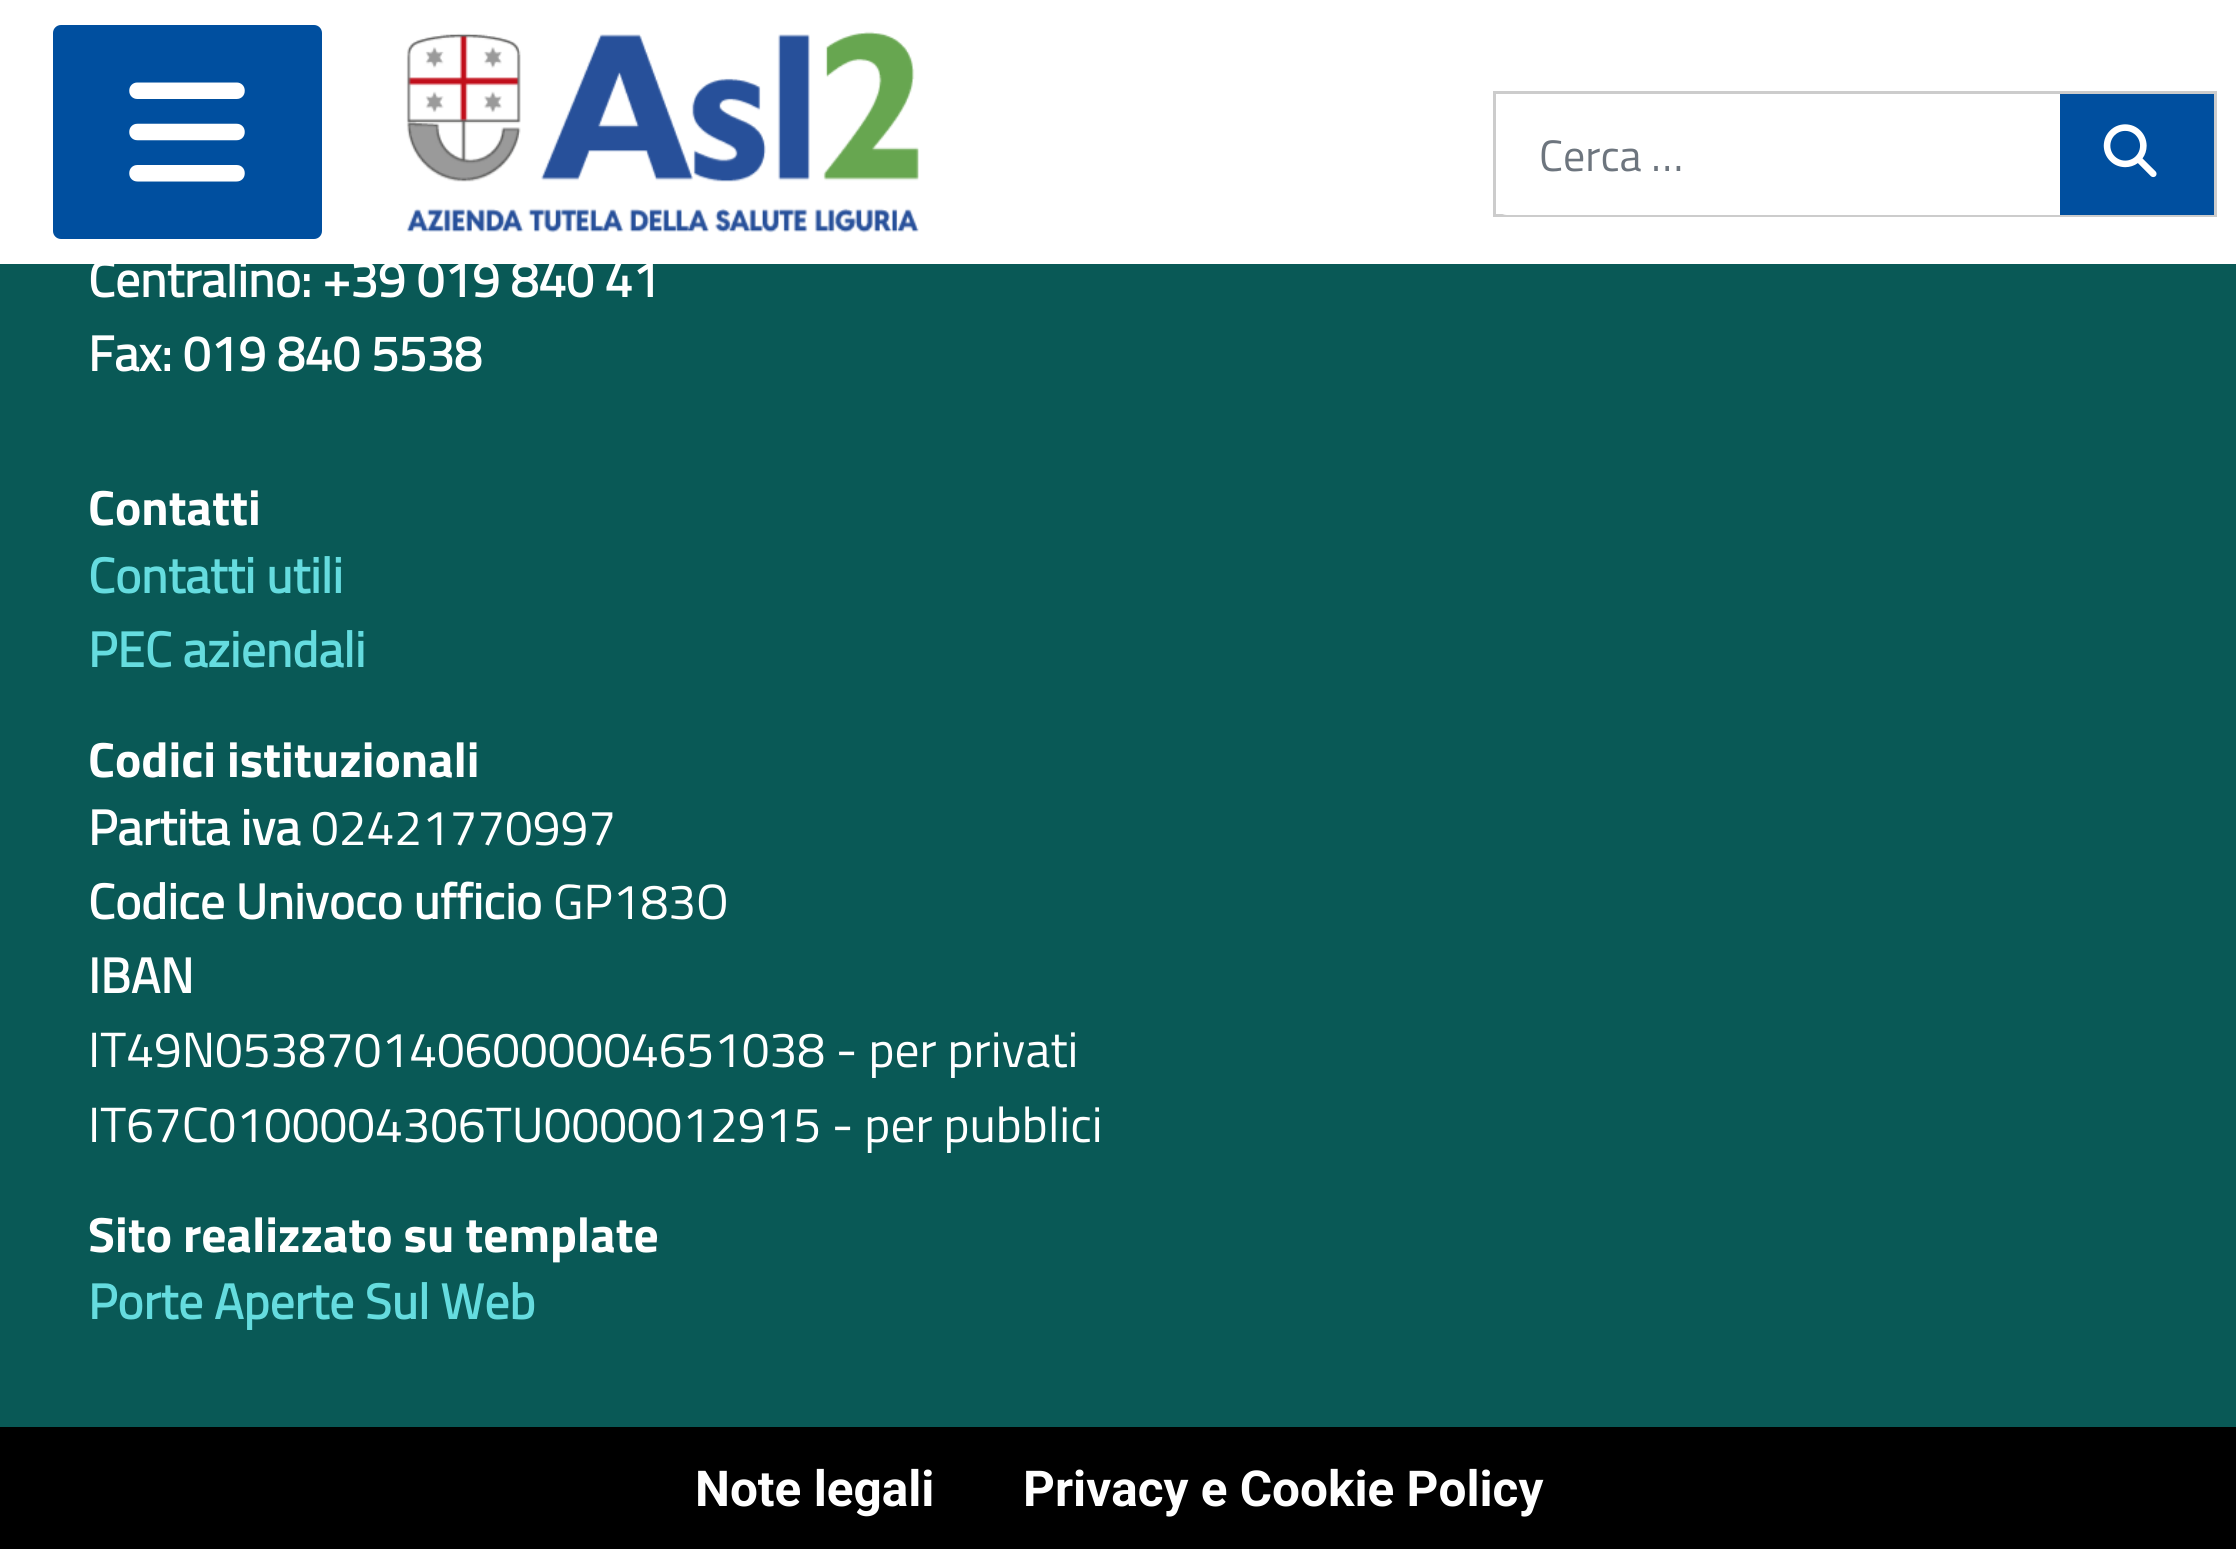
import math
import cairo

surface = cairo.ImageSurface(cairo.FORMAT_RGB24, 2236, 1549)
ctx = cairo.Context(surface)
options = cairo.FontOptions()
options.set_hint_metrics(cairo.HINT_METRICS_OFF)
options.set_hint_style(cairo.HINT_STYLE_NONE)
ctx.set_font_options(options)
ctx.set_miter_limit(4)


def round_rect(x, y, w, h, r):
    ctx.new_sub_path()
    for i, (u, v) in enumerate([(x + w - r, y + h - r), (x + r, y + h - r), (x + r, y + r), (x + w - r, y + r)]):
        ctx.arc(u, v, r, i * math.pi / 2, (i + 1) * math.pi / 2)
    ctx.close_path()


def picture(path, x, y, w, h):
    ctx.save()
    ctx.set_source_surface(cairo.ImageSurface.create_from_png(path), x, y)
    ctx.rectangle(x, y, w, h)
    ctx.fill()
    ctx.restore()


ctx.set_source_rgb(0.039, 0.349, 0.337)
ctx.paint()
ctx.set_source_rgb(1, 1, 1)
ctx.rectangle(0, 0, 2236, 264)
ctx.fill()
ctx.set_source_rgb(0, 0.31, 0.624)
round_rect(51.5, 23.5, 272, 217, 9.5)
ctx.fill_preserve()
ctx.set_source_rgb(1, 1, 1)
ctx.set_line_width(3)
ctx.stroke()
picture("img1.png", 129, 82, 116, 100)
picture("img2.png", 406, 31, 513, 202)
ctx.rectangle(1494.5, 92.5, 721, 123)
ctx.set_source_rgb(0.8, 0.8, 0.8)
ctx.stroke()
ctx.set_source_rgb(1, 1, 1)
ctx.new_path()
ctx.move_to(1507, 94)
ctx.line_to(2060, 94)
ctx.line_to(2060, 215)
ctx.line_to(1507, 215)
ctx.curve_to(1501, 215, 1496, 210, 1496, 204)
ctx.line_to(1496, 105)
ctx.curve_to(1496, 99, 1501, 94, 1507, 94)
ctx.close_path()
ctx.fill()
ctx.select_font_face("Titillium Web")
ctx.set_font_size(44)
ctx.set_source_rgb(0.427, 0.459, 0.494)
ctx.move_to(1539, 171)
ctx.show_text("Cerca …")
ctx.set_source_rgb(0, 0.31, 0.624)
ctx.rectangle(2060, 94, 154, 121)
ctx.fill()
picture("img3.png", 2103, 124, 54, 54)
ctx.select_font_face("Titillium Web", cairo.FONT_SLANT_NORMAL, cairo.FONT_WEIGHT_BOLD)
ctx.set_font_size(49.5)
ctx.set_source_rgb(1, 1, 1)
ctx.move_to(88, 297)
ctx.show_text("Centralino: +39 019 840 41")
ctx.move_to(88, 371)
ctx.show_text("Fax: 019 840 5538")
ctx.select_font_face("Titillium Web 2", cairo.FONT_SLANT_NORMAL, cairo.FONT_WEIGHT_BOLD)
ctx.move_to(88, 525)
ctx.show_text("Contatti")
ctx.select_font_face("Titillium Web", cairo.FONT_SLANT_NORMAL, cairo.FONT_WEIGHT_BOLD)
ctx.set_source_rgb(0.396, 0.863, 0.875)
ctx.move_to(88, 593)
ctx.show_text("Contatti utili")
ctx.move_to(88, 667)
ctx.show_text("PEC aziendali")
ctx.select_font_face("Titillium Web 2", cairo.FONT_SLANT_NORMAL, cairo.FONT_WEIGHT_BOLD)
ctx.set_source_rgb(1, 1, 1)
ctx.move_to(88, 777)
ctx.show_text("Codici istituzionali")
ctx.select_font_face("Titillium Web", cairo.FONT_SLANT_NORMAL, cairo.FONT_WEIGHT_BOLD)
ctx.move_to(88, 845)
ctx.show_text("Partita iva")
ctx.select_font_face("Titillium Web")
ctx.move_to(311, 845)
ctx.show_text("02421770997")
ctx.select_font_face("Titillium Web", cairo.FONT_SLANT_NORMAL, cairo.FONT_WEIGHT_BOLD)
ctx.move_to(88, 919)
ctx.show_text("Codice Univoco ufficio")
ctx.select_font_face("Titillium Web")
ctx.move_to(553, 919)
ctx.show_text("GP183O")
ctx.select_font_face("Titillium Web", cairo.FONT_SLANT_NORMAL, cairo.FONT_WEIGHT_BOLD)
ctx.move_to(88, 993)
ctx.show_text("IBAN")
ctx.select_font_face("Titillium Web")
ctx.move_to(88, 1067)
ctx.show_text("IT49N0538701406000004651038 - per privati")
ctx.move_to(88, 1142)
ctx.show_text("IT67C0100004306TU0000012915 - per pubblici")
ctx.select_font_face("Titillium Web 2", cairo.FONT_SLANT_NORMAL, cairo.FONT_WEIGHT_BOLD)
ctx.move_to(88, 1252)
ctx.show_text("Sito realizzato su template")
ctx.select_font_face("Titillium Web", cairo.FONT_SLANT_NORMAL, cairo.FONT_WEIGHT_BOLD)
ctx.set_source_rgb(0.396, 0.863, 0.875)
ctx.move_to(88, 1319)
ctx.show_text("Porte Aperte Sul Web")
ctx.set_source_rgb(0, 0, 0)
ctx.rectangle(0, 1427, 2236, 122)
ctx.fill()
ctx.select_font_face("Roboto", cairo.FONT_SLANT_NORMAL, cairo.FONT_WEIGHT_BOLD)
ctx.set_source_rgb(1, 1, 1)
ctx.move_to(695, 1506)
ctx.show_text("Note legali")
ctx.move_to(1023, 1506)
ctx.show_text("Privacy e Cookie Policy")
surface.write_to_png("page.png")
